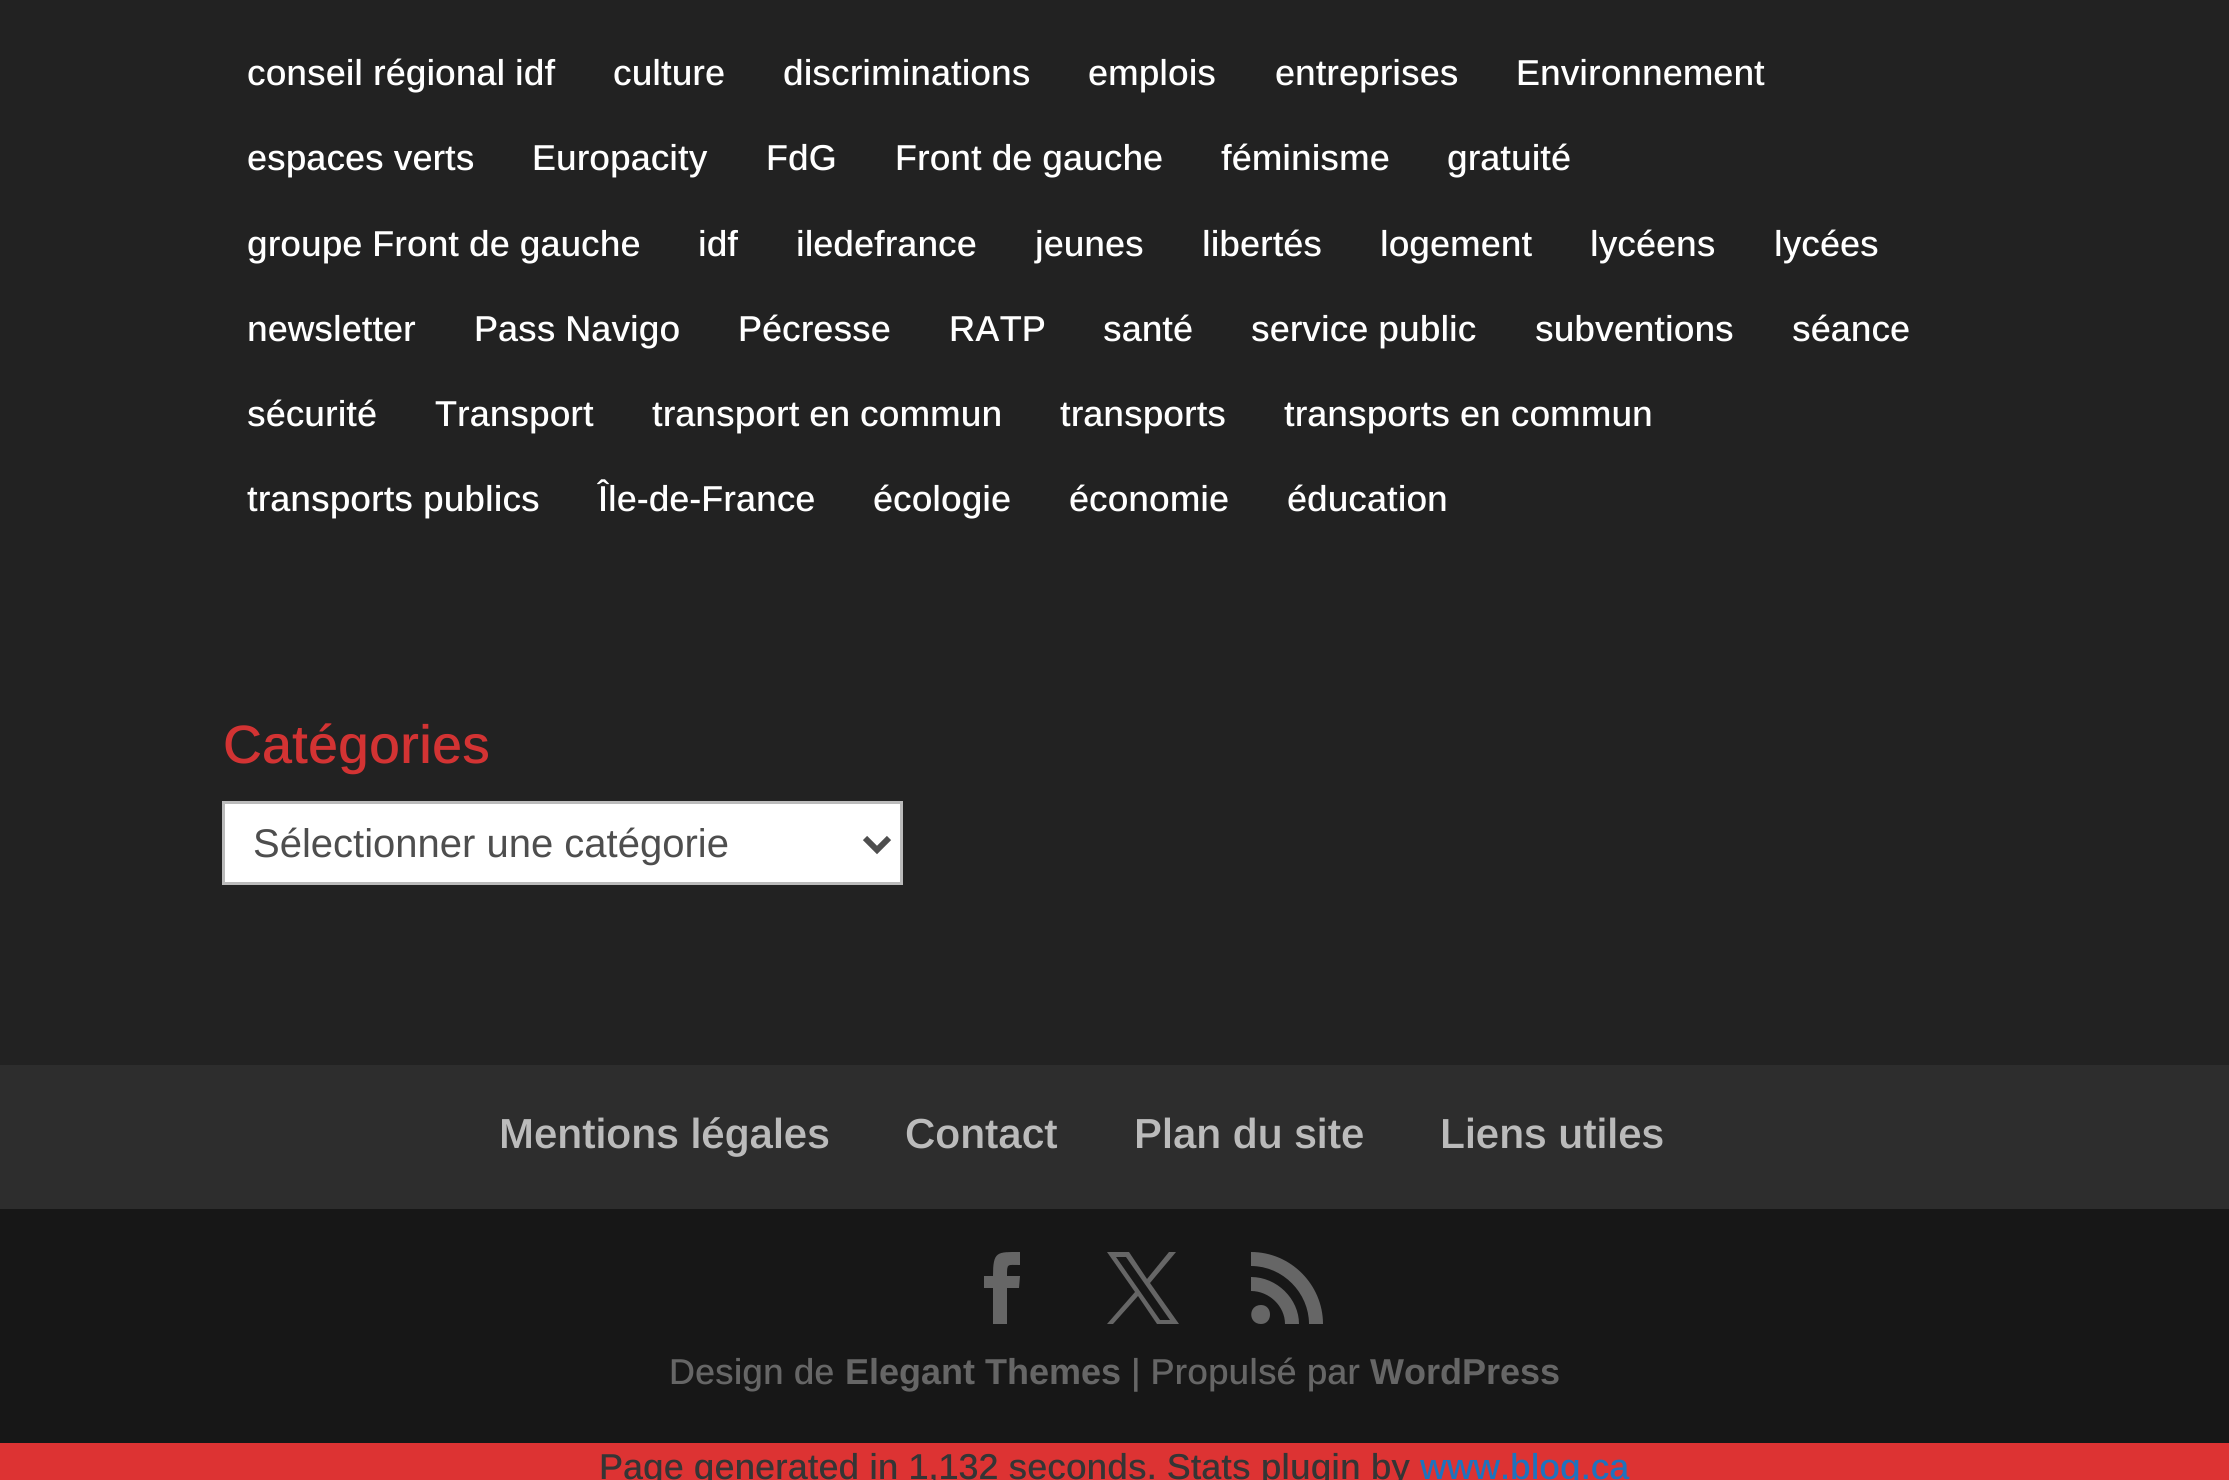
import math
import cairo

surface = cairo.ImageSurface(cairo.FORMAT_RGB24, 2229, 1480)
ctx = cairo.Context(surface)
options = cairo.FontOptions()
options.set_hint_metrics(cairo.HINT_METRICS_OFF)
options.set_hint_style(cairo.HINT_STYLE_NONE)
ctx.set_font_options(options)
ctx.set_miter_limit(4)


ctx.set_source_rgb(0.867, 0.2, 0.2)
ctx.paint()
ctx.set_source_rgb(0.133, 0.133, 0.133)
ctx.rectangle(0, 0, 2229, 1065)
ctx.fill()
ctx.select_font_face("Arimo Medium")
ctx.set_font_size(36)
ctx.set_source_rgb(1, 1, 1)
ctx.move_to(247, 85)
ctx.show_text("conseil régional idf")
ctx.move_to(613, 85)
ctx.show_text("culture")
ctx.move_to(783, 85)
ctx.show_text("discriminations")
ctx.move_to(1088, 85)
ctx.show_text("emplois")
ctx.move_to(1275, 85)
ctx.show_text("entreprises")
ctx.move_to(1516, 85)
ctx.show_text("Environnement")
ctx.move_to(247, 170)
ctx.show_text("espaces verts")
ctx.move_to(532, 170)
ctx.show_text("Europacity")
ctx.move_to(766, 170)
ctx.show_text("FdG")
ctx.move_to(895, 170)
ctx.show_text("Front de gauche")
ctx.move_to(1221, 170)
ctx.show_text("féminisme")
ctx.move_to(1447, 170)
ctx.show_text("gratuité")
ctx.move_to(247, 256)
ctx.show_text("groupe Front de gauche")
ctx.move_to(698, 256)
ctx.show_text("idf")
ctx.move_to(796, 256)
ctx.show_text("iledefrance")
ctx.move_to(1035, 256)
ctx.show_text("jeunes")
ctx.move_to(1202, 256)
ctx.show_text("libertés")
ctx.move_to(1380, 256)
ctx.show_text("logement")
ctx.move_to(1590, 256)
ctx.show_text("lycéens")
ctx.move_to(1774, 256)
ctx.show_text("lycées")
ctx.move_to(247, 341)
ctx.show_text("newsletter")
ctx.move_to(474, 341)
ctx.show_text("Pass Navigo")
ctx.move_to(738, 341)
ctx.show_text("Pécresse")
ctx.move_to(949, 341)
ctx.show_text("RATP")
ctx.move_to(1103, 341)
ctx.show_text("santé")
ctx.move_to(1251, 341)
ctx.show_text("service public")
ctx.move_to(1535, 341)
ctx.show_text("subventions")
ctx.move_to(1792, 341)
ctx.show_text("séance")
ctx.move_to(247, 426)
ctx.show_text("sécurité")
ctx.move_to(435, 426)
ctx.show_text("Transport")
ctx.move_to(652, 426)
ctx.show_text("transport en commun")
ctx.move_to(1060, 426)
ctx.show_text("transports")
ctx.move_to(1284, 426)
ctx.show_text("transports en commun")
ctx.move_to(247, 511)
ctx.show_text("transports publics")
ctx.move_to(598, 511)
ctx.show_text("Île-de-France")
ctx.move_to(873, 511)
ctx.show_text("écologie")
ctx.move_to(1069, 511)
ctx.show_text("économie")
ctx.move_to(1287, 511)
ctx.show_text("éducation")
ctx.set_font_size(54)
ctx.set_source_rgb(0.827, 0.2, 0.2)
ctx.move_to(223, 763)
ctx.show_text("Catégories")
ctx.set_source_rgb(1, 1, 1)
ctx.rectangle(223.5, 802.5, 678, 81)
ctx.fill_preserve()
ctx.set_source_rgb(0.733, 0.733, 0.733)
ctx.set_line_width(3)
ctx.stroke()
ctx.new_path()
ctx.move_to(865, 838)
ctx.line_to(877, 850)
ctx.line_to(889, 838)
ctx.set_source_rgb(0.306, 0.306, 0.306)
ctx.set_line_width(6)
ctx.stroke()
ctx.select_font_face("Arimo")
ctx.set_font_size(40)
ctx.move_to(253, 857)
ctx.show_text("Sélectionner une catégorie")
ctx.set_source_rgb(0.176, 0.176, 0.176)
ctx.rectangle(0, 1065, 2229, 144)
ctx.fill()
ctx.select_font_face("Arimo SemiBold")
ctx.set_font_size(42)
ctx.set_source_rgb(0.733, 0.733, 0.733)
ctx.move_to(499, 1148)
ctx.show_text("Mentions légales")
ctx.move_to(905, 1148)
ctx.show_text("Contact")
ctx.move_to(1134, 1148)
ctx.show_text("Plan du site")
ctx.move_to(1440, 1148)
ctx.show_text("Liens utiles")
ctx.set_source_rgb(0.09, 0.09, 0.09)
ctx.rectangle(0, 1209, 2229, 234)
ctx.fill()
ctx.set_source_rgb(0.4, 0.4, 0.4)
ctx.new_path()
ctx.move_to(993, 1324)
ctx.line_to(1007, 1324)
ctx.line_to(1007, 1288)
ctx.line_to(1019, 1288)
ctx.line_to(1020, 1276)
ctx.line_to(1007, 1276)
ctx.curve_to(1007, 1263, 1007, 1265, 1020, 1265)
ctx.line_to(1020, 1252)
ctx.curve_to(997, 1252, 993, 1251, 993, 1276)
ctx.line_to(984, 1276)
ctx.line_to(984, 1288)
ctx.line_to(993, 1288)
ctx.close_path()
ctx.fill()
ctx.new_path()
ctx.move_to(1107, 1252)
ctx.line_to(1135, 1292)
ctx.line_to(1107, 1324)
ctx.line_to(1113, 1324)
ctx.line_to(1138, 1296)
ctx.line_to(1157, 1324)
ctx.line_to(1179, 1324)
ctx.line_to(1150, 1283)
ctx.line_to(1176, 1252)
ctx.line_to(1169, 1252)
ctx.line_to(1147, 1279)
ctx.line_to(1129, 1252)
ctx.close_path()
ctx.move_to(1116, 1257)
ctx.line_to(1126, 1257)
ctx.line_to(1170, 1320)
ctx.line_to(1160, 1320)
ctx.close_path()
ctx.fill()
ctx.new_path()
ctx.move_to(1251, 1252)
ctx.line_to(1251, 1266)
ctx.curve_to(1283, 1266, 1309, 1293, 1309, 1324)
ctx.line_to(1323, 1324)
ctx.curve_to(1323, 1285, 1291, 1252, 1251, 1252)
ctx.close_path()
ctx.move_to(1285, 1324)
ctx.line_to(1299, 1324)
ctx.curve_to(1299, 1299, 1277, 1277, 1251, 1277)
ctx.line_to(1251, 1291)
ctx.curve_to(1269, 1291, 1285, 1306, 1285, 1324)
ctx.close_path()
ctx.move_to(1261, 1324)
ctx.curve_to(1273, 1324, 1273, 1305, 1261, 1305)
ctx.curve_to(1248, 1305, 1248, 1324, 1261, 1324)
ctx.close_path()
ctx.fill()
ctx.select_font_face("Arimo Medium")
ctx.set_font_size(36)
ctx.move_to(669, 1384)
ctx.show_text("Design de")
ctx.select_font_face("Arimo", cairo.FONT_SLANT_NORMAL, cairo.FONT_WEIGHT_BOLD)
ctx.move_to(845, 1384)
ctx.show_text("Elegant Themes")
ctx.select_font_face("Arimo Medium")
ctx.move_to(1131, 1384)
ctx.show_text("| Propulsé par")
ctx.select_font_face("Arimo", cairo.FONT_SLANT_NORMAL, cairo.FONT_WEIGHT_BOLD)
ctx.move_to(1370, 1384)
ctx.show_text("WordPress")
ctx.select_font_face("Arimo Medium")
ctx.set_source_rgb(0.208, 0.208, 0.208)
ctx.move_to(599, 1479)
ctx.show_text("Page generated in 1,132 seconds. Stats plugin by")
ctx.set_source_rgb(0.118, 0.451, 0.745)
ctx.move_to(1420, 1479)
ctx.show_text("www.blog.ca")
surface.write_to_png("page.png")
